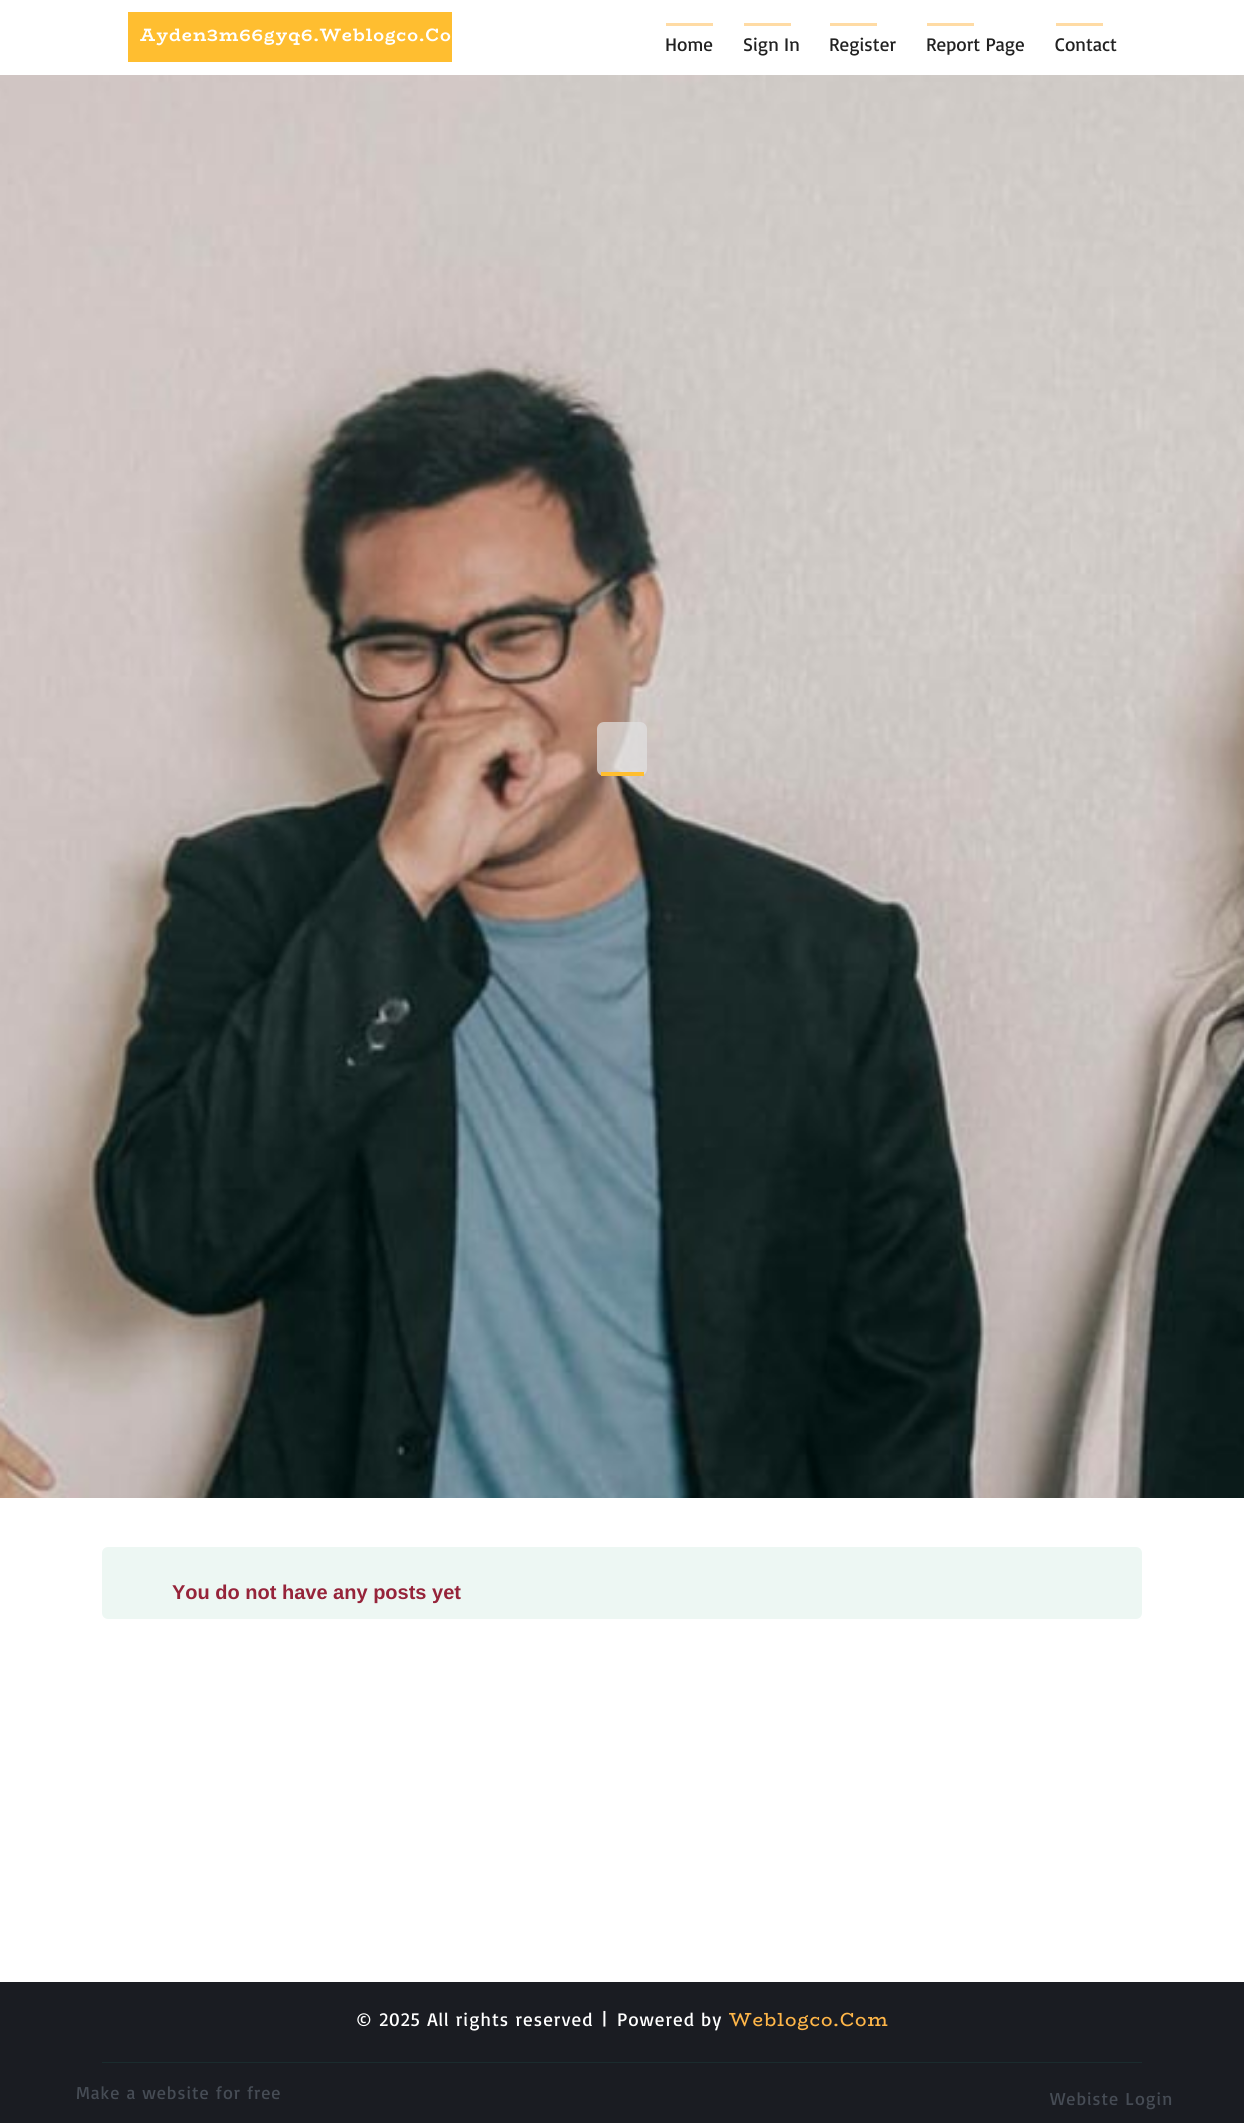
import math
import cairo

surface = cairo.ImageSurface(cairo.FORMAT_RGB24, 1244, 2123)
ctx = cairo.Context(surface)
options = cairo.FontOptions()
options.set_hint_metrics(cairo.HINT_METRICS_OFF)
options.set_hint_style(cairo.HINT_STYLE_NONE)
ctx.set_font_options(options)
ctx.set_miter_limit(4)


def spaced_text(x, y, s, letter, word):
    ctx.move_to(x, y)
    for ch in s:
        ctx.show_text(ch)
        ctx.rel_move_to(letter + word * (ch == ' '), 0)


def round_rect(x, y, w, h, r):
    ctx.new_sub_path()
    for i, (u, v) in enumerate([(x + w - r, y + h - r), (x + r, y + h - r), (x + r, y + r), (x + w - r, y + r)]):
        ctx.arc(u, v, r, i * math.pi / 2, (i + 1) * math.pi / 2)
    ctx.close_path()


def picture(path, x, y, w, h):
    ctx.save()
    ctx.set_source_surface(cairo.ImageSurface.create_from_png(path), x, y)
    ctx.rectangle(x, y, w, h)
    ctx.fill()
    ctx.restore()


ctx.set_source_rgb(1, 1, 1)
ctx.paint()
ctx.set_source_rgb(1, 0.745, 0.188)
ctx.rectangle(128, 12, 324, 50)
ctx.fill()
ctx.select_font_face("BioRhyme", cairo.FONT_SLANT_NORMAL, cairo.FONT_WEIGHT_BOLD)
ctx.set_font_size(18)
ctx.set_source_rgb(1, 1, 1)
spaced_text(140, 41, "Ayden3m66gyq6.Weblogco.Co", 1, 0)
ctx.set_source_rgb(1, 0.859, 0.643)
ctx.rectangle(666, 23, 47, 3)
ctx.fill()
ctx.select_font_face("Basic")
ctx.set_font_size(19)
ctx.set_source_rgb(0.129, 0.129, 0.129)
ctx.move_to(665, 51)
ctx.show_text("Home")
ctx.set_source_rgb(1, 0.859, 0.643)
ctx.rectangle(744, 23, 47, 3)
ctx.fill()
ctx.set_source_rgb(0.129, 0.129, 0.129)
ctx.move_to(743, 51)
ctx.show_text("Sign In")
ctx.set_source_rgb(1, 0.859, 0.643)
ctx.rectangle(830, 23, 47, 3)
ctx.fill()
ctx.set_source_rgb(0.129, 0.129, 0.129)
ctx.move_to(829, 51)
ctx.show_text("Register")
ctx.set_source_rgb(1, 0.859, 0.643)
ctx.rectangle(927, 23, 47, 3)
ctx.fill()
ctx.set_source_rgb(0.129, 0.129, 0.129)
ctx.move_to(926, 51)
ctx.show_text("Report Page")
ctx.set_source_rgb(1, 0.859, 0.643)
ctx.rectangle(1056, 23, 47, 3)
ctx.fill()
ctx.set_source_rgb(0.129, 0.129, 0.129)
ctx.move_to(1055, 51)
ctx.show_text("Contact")
picture("img1.png", 0, 75, 1244, 1423)
ctx.set_source_rgba(0.882, 0.882, 0.882, 0.7)
round_rect(597, 722, 50, 54, 7)
ctx.fill()
ctx.set_source_rgb(1, 0.745, 0.188)
ctx.rectangle(601, 772, 43, 4)
ctx.fill()
ctx.set_source_rgb(0.929, 0.965, 0.953)
round_rect(102, 1547, 1040, 72, 6)
ctx.fill()
ctx.select_font_face("Liberation Sans", cairo.FONT_SLANT_NORMAL, cairo.FONT_WEIGHT_BOLD)
ctx.set_font_size(20)
ctx.set_source_rgb(0.588, 0.141, 0.227)
ctx.move_to(172, 1599)
ctx.show_text("You do not have any posts yet")
ctx.set_source_rgb(0.102, 0.11, 0.133)
ctx.rectangle(0, 1982, 1244, 141)
ctx.fill()
ctx.set_source_rgb(0.102, 0.173, 0.18)
ctx.rectangle(102, 2062, 1040, 1)
ctx.fill()
ctx.select_font_face("Basic")
ctx.set_font_size(19)
ctx.set_source_rgb(1, 1, 1)
spaced_text(356, 2026, "© 2025 All rights reserved", 1, 0)
spaced_text(602, 2025, "|", 1, 0)
spaced_text(617, 2026, "Powered by", 1, 0)
ctx.select_font_face("BioRhyme")
ctx.set_source_rgb(1, 0.714, 0.282)
spaced_text(729, 2026, "Weblogco.Com", 1, 0)
ctx.select_font_face("Basic")
ctx.set_font_size(18)
ctx.set_source_rgb(0.275, 0.298, 0.333)
spaced_text(76, 2099, "Make a website for free", 1, 0)
spaced_text(1050, 2105, "Webiste Login", 1, 0)
surface.write_to_png("page.png")
